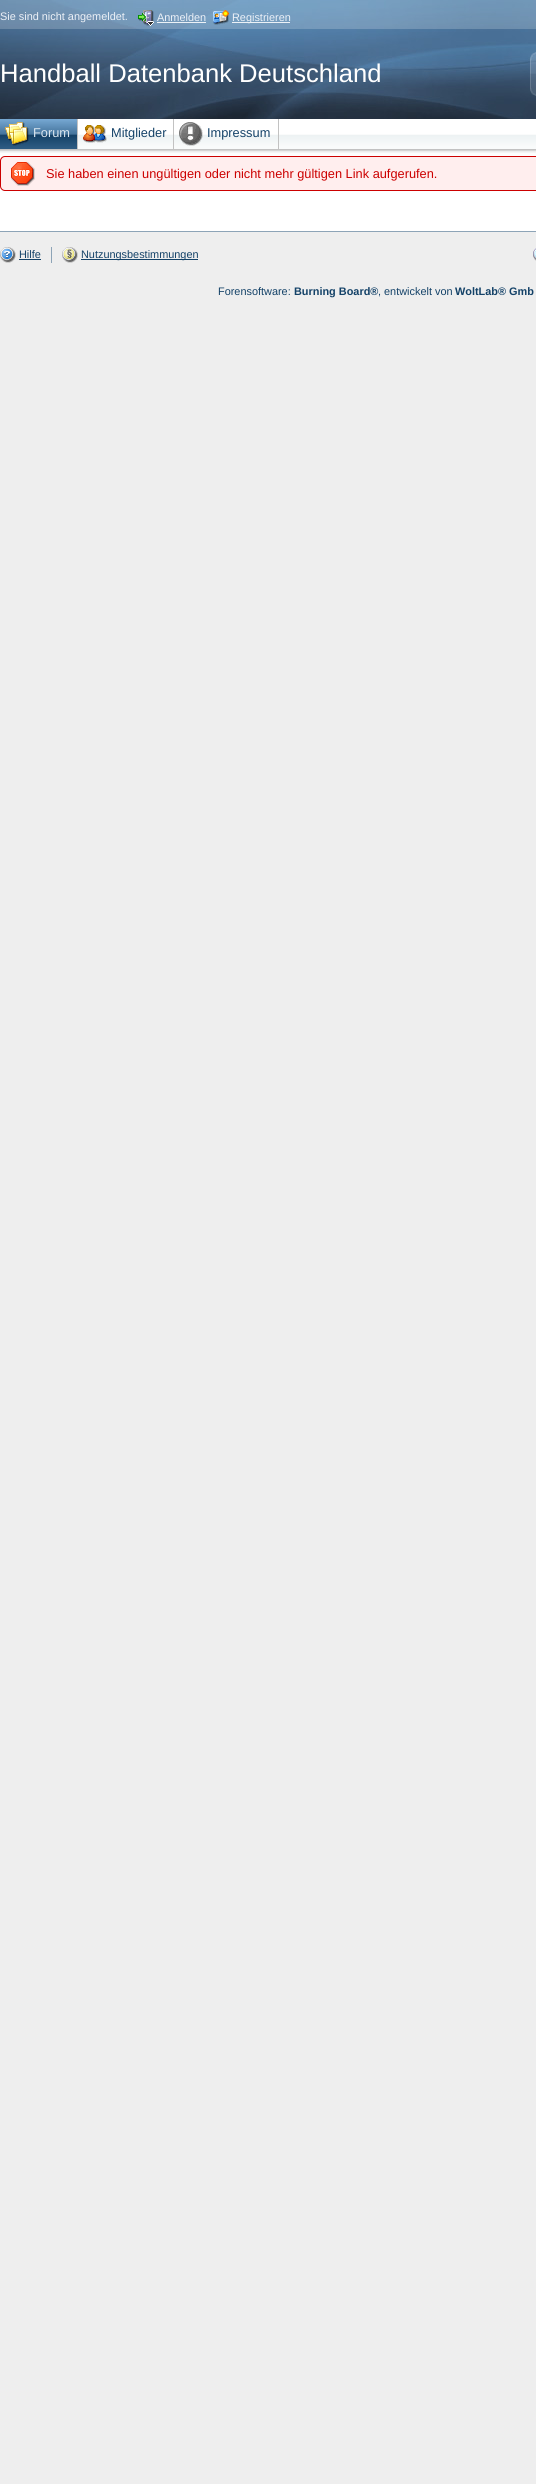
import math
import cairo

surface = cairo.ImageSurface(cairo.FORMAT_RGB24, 536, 2484)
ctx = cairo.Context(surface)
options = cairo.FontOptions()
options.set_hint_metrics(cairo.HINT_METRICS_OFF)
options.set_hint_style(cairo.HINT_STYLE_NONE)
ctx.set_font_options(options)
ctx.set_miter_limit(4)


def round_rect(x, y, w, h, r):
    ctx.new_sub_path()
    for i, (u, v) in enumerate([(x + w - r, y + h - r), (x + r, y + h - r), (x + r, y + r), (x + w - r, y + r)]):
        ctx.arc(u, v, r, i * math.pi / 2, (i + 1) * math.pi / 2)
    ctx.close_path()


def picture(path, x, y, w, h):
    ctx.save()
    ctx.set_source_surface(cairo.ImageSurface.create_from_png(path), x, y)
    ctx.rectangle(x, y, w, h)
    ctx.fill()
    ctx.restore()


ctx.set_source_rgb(0.933, 0.933, 0.933)
ctx.paint()
ctx.set_source_rgb(1, 1, 1)
ctx.rectangle(0, 156, 536, 75)
ctx.fill()
picture("img1.png", 0, 0, 536, 119)
ctx.set_source_rgba(1, 1, 1, 0.2)
ctx.rectangle(0, 0, 536, 29)
ctx.fill()
ctx.select_font_face("Liberation Sans")
ctx.set_font_size(10.9)
ctx.set_source_rgb(0.922, 0.945, 0.965)
ctx.move_to(0, 20)
ctx.show_text("Sie sind nicht angemeldet.")
picture("img2.png", 138, 10, 16, 16)
ctx.move_to(157, 21)
ctx.show_text("Anmelden")
ctx.rectangle(157, 22, 49, 1)
ctx.fill()
picture("img3.png", 213, 10, 16, 15)
ctx.rectangle(232, 22, 58, 1)
ctx.fill()
ctx.move_to(232, 21)
ctx.show_text("Registrieren")
ctx.set_font_size(25.6)
ctx.set_source_rgb(1, 1, 1)
ctx.move_to(0, 82)
ctx.show_text("Handball Datenbank Deutschland")
picture("img4.png", 530, 52, 6, 44)
picture("img5.png", 0, 119, 536, 37)
picture("img6.png", 0, 119, 77, 30)
ctx.set_source_rgb(0.761, 0.761, 0.761)
ctx.rectangle(77, 119, 1, 31)
ctx.fill()
picture("img7.png", 5, 122, 24, 24)
ctx.set_font_size(12.8)
ctx.set_source_rgb(0.851, 0.898, 0.937)
ctx.move_to(33, 137)
ctx.show_text("Forum")
ctx.set_source_rgb(0.761, 0.761, 0.761)
ctx.rectangle(173, 119, 1, 31)
ctx.fill()
picture("img8.png", 83, 125, 24, 18)
ctx.set_source_rgb(0.082, 0.259, 0.408)
ctx.move_to(111, 137)
ctx.show_text("Mitglieder")
ctx.set_source_rgb(0.761, 0.761, 0.761)
ctx.rectangle(278, 119, 1, 31)
ctx.fill()
picture("img9.png", 179, 122, 24, 24)
ctx.set_source_rgb(0.082, 0.259, 0.408)
ctx.move_to(207, 137)
ctx.show_text("Impressum")
ctx.set_source_rgb(1, 0.933, 0.933)
round_rect(0, 156, 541, 35, 5)
ctx.fill()
picture("img10.png", 11, 162, 24, 24)
round_rect(0.5, 156.5, 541, 34, 4.5)
ctx.set_source_rgb(0.8, 0, 0)
ctx.set_line_width(1)
ctx.stroke()
ctx.move_to(46, 178)
ctx.show_text("Sie haben einen ungültigen oder nicht mehr gültigen Link aufgerufen.")
ctx.set_source_rgb(0.553, 0.643, 0.718)
ctx.rectangle(0, 231, 536, 1)
ctx.fill()
picture("img11.png", 0, 247, 16, 16)
ctx.set_font_size(10.9)
ctx.set_source_rgb(0.082, 0.259, 0.408)
ctx.move_to(19, 258)
ctx.show_text("Hilfe")
ctx.rectangle(19, 259, 22, 1)
ctx.fill()
ctx.set_source_rgb(0.553, 0.643, 0.718)
ctx.rectangle(51, 247, 1, 16)
ctx.fill()
picture("img12.png", 62, 247, 16, 16)
ctx.set_source_rgb(0.082, 0.259, 0.408)
ctx.rectangle(81, 259, 117, 1)
ctx.fill()
ctx.move_to(81, 258)
ctx.show_text("Nutzungsbestimmungen")
picture("img13.png", 533, 248, 3, 13)
ctx.move_to(218, 295)
ctx.show_text("Forensoftware:")
ctx.select_font_face("Liberation Sans", cairo.FONT_SLANT_NORMAL, cairo.FONT_WEIGHT_BOLD)
ctx.move_to(294, 295)
ctx.show_text("Burning Board®")
ctx.select_font_face("Liberation Sans")
ctx.move_to(378, 295)
ctx.show_text(", entwickelt von")
ctx.select_font_face("Liberation Sans", cairo.FONT_SLANT_NORMAL, cairo.FONT_WEIGHT_BOLD)
ctx.move_to(455, 295)
ctx.show_text("WoltLab® Gmb")
surface.write_to_png("page.png")
